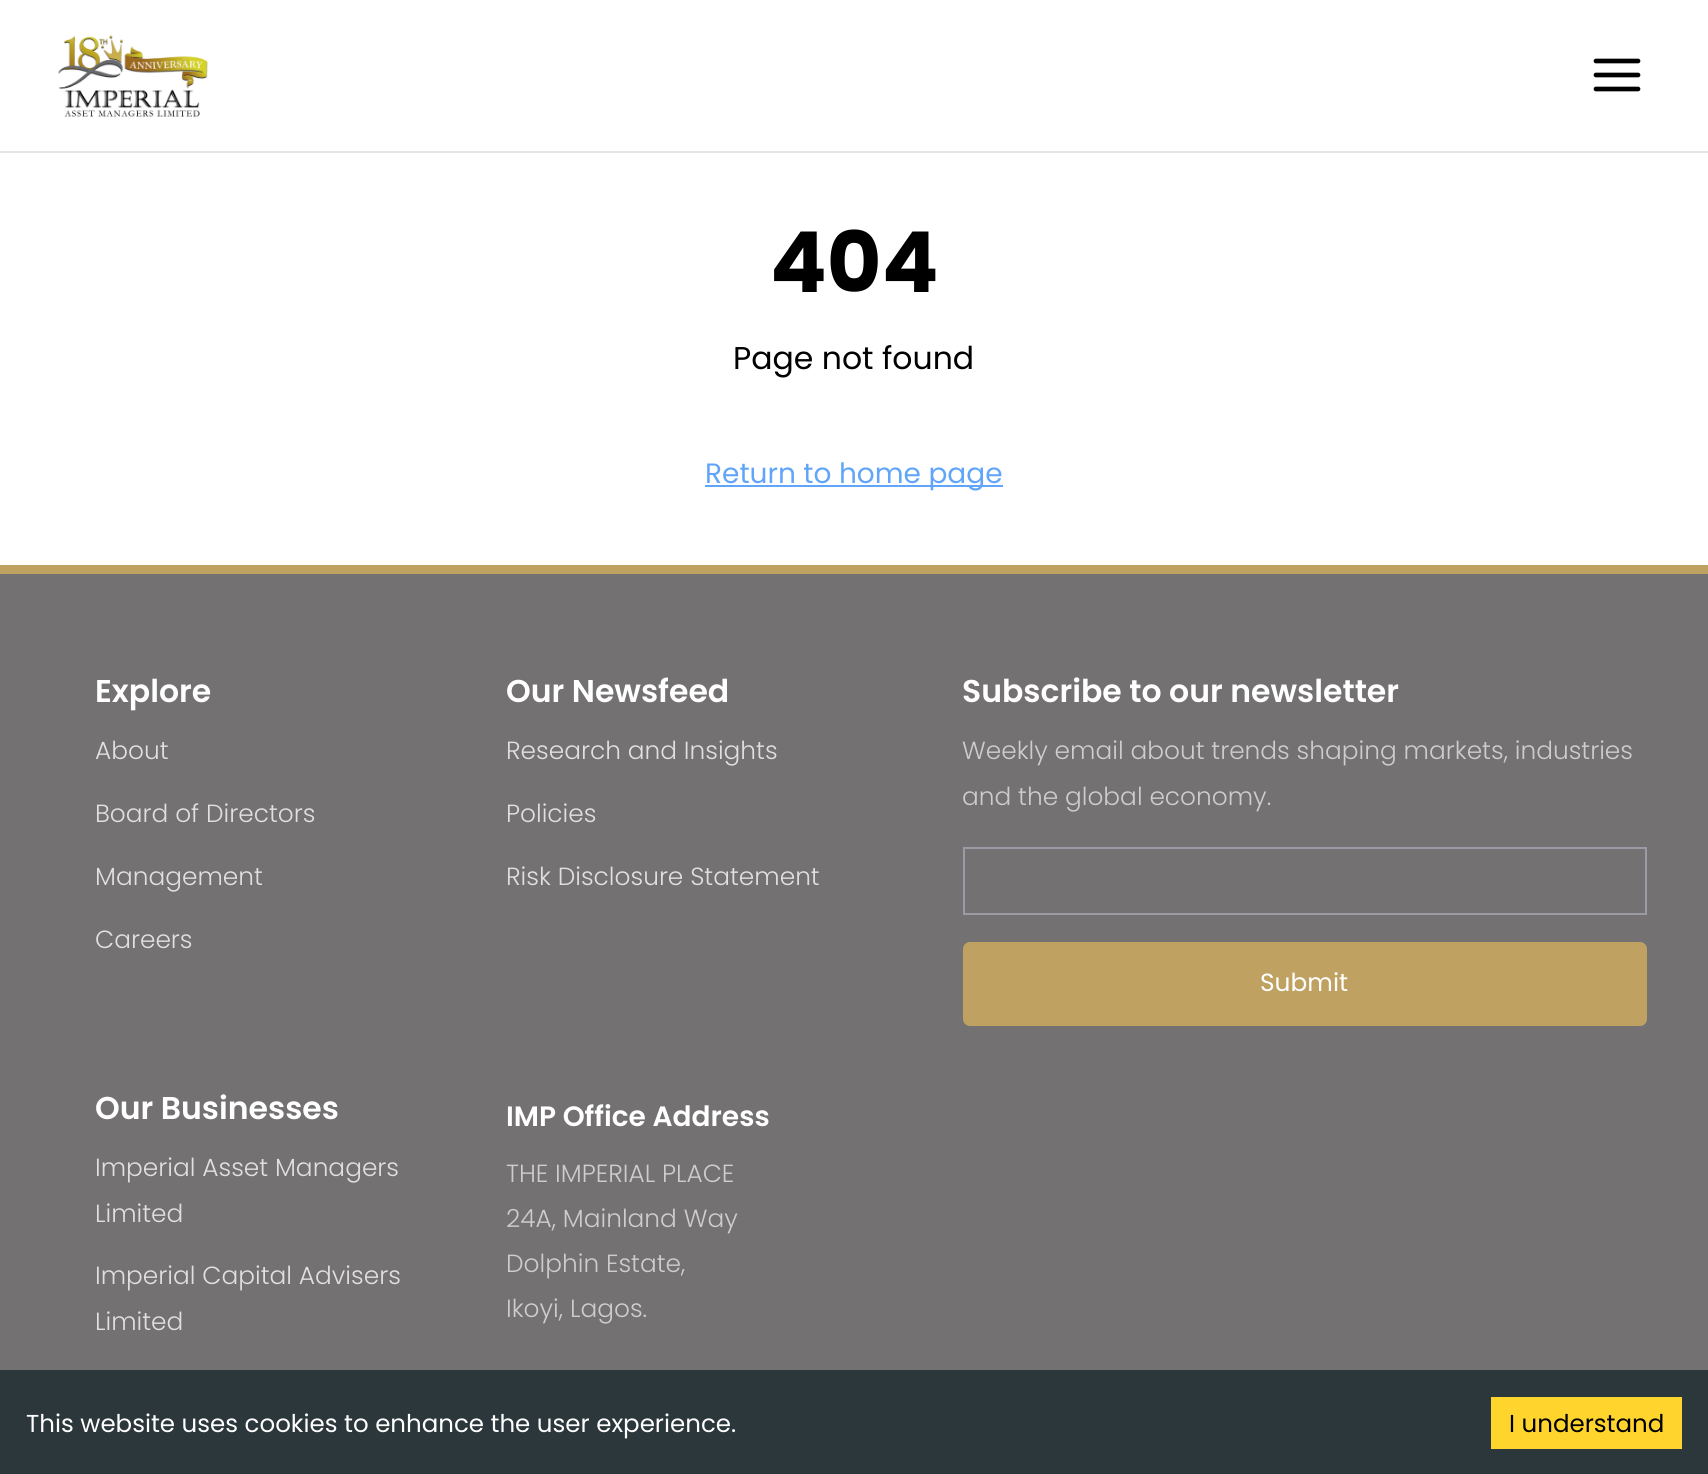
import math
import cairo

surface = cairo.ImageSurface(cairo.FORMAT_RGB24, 1708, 1474)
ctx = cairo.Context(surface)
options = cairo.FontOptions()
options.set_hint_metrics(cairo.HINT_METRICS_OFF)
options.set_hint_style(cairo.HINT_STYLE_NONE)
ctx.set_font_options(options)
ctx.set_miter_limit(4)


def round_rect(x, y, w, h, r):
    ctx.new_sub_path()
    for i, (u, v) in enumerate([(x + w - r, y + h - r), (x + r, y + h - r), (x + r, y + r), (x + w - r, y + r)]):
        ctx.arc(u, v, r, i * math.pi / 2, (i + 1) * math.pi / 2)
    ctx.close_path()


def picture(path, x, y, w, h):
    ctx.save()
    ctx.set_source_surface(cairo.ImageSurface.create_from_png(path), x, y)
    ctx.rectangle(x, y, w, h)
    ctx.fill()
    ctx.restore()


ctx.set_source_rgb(1, 1, 1)
ctx.paint()
ctx.set_source_rgb(0.898, 0.898, 0.898)
ctx.rectangle(0, 151, 1708, 2)
ctx.fill()
picture("img1.png", 58, 35, 150, 82)
ctx.new_path()
ctx.move_to(1596, 75)
ctx.line_to(1638, 75)
ctx.move_to(1596, 61)
ctx.line_to(1638, 61)
ctx.move_to(1596, 89)
ctx.line_to(1638, 89)
ctx.set_source_rgb(0, 0, 0)
ctx.set_line_width(4.7)
ctx.set_line_cap(cairo.LINE_CAP_ROUND)
ctx.set_line_join(cairo.LINE_JOIN_ROUND)
ctx.stroke()
ctx.select_font_face("Poppins", cairo.FONT_SLANT_NORMAL, cairo.FONT_WEIGHT_BOLD)
ctx.set_font_size(84)
ctx.move_to(770, 292)
ctx.show_text("404")
ctx.select_font_face("Poppins")
ctx.set_font_size(31.5)
ctx.move_to(733, 369)
ctx.show_text("Page not found")
ctx.set_source_rgb(0.376, 0.647, 0.98)
ctx.rectangle(705, 485, 298, 2)
ctx.fill()
ctx.set_font_size(28)
ctx.move_to(705, 483)
ctx.show_text("Return to home page")
ctx.set_source_rgb(0.451, 0.443, 0.443)
ctx.rectangle(0, 574, 1708, 796)
ctx.fill()
ctx.set_source_rgb(0.749, 0.631, 0.384)
ctx.rectangle(0, 565, 1708, 9)
ctx.fill()
ctx.select_font_face("Poppins SemiBold")
ctx.set_font_size(31.5)
ctx.set_source_rgb(1, 1, 1)
ctx.move_to(95, 702)
ctx.show_text("Explore")
ctx.select_font_face("Poppins Light")
ctx.set_font_size(24.85)
ctx.set_source_rgb(0.882, 0.878, 0.878)
ctx.move_to(95, 759)
ctx.show_text("About")
ctx.move_to(95, 822)
ctx.show_text("Board of Directors")
ctx.move_to(95, 885)
ctx.show_text("Management")
ctx.move_to(95, 948)
ctx.show_text("Careers")
ctx.select_font_face("Poppins SemiBold")
ctx.set_font_size(31.5)
ctx.set_source_rgb(1, 1, 1)
ctx.move_to(506, 702)
ctx.show_text("Our Newsfeed")
ctx.select_font_face("Poppins Light")
ctx.set_font_size(24.85)
ctx.set_source_rgb(0.882, 0.878, 0.878)
ctx.move_to(506, 759)
ctx.show_text("Research and Insights")
ctx.move_to(506, 822)
ctx.show_text("Policies")
ctx.move_to(506, 885)
ctx.show_text("Risk Disclosure Statement")
ctx.select_font_face("Poppins SemiBold")
ctx.set_font_size(31.5)
ctx.set_source_rgb(1, 1, 1)
ctx.move_to(962, 702)
ctx.show_text("Subscribe to our newsletter")
ctx.select_font_face("Poppins Light")
ctx.set_font_size(24.85)
ctx.set_source_rgb(0.804, 0.804, 0.804)
ctx.move_to(962, 759)
ctx.show_text("Weekly email about trends shaping markets, industries")
ctx.move_to(962, 805)
ctx.show_text("and the global economy.")
ctx.rectangle(964, 848, 682, 66)
ctx.set_source_rgb(0.608, 0.608, 0.647)
ctx.set_line_width(2)
ctx.set_line_cap(cairo.LINE_CAP_BUTT)
ctx.set_line_join(cairo.LINE_JOIN_MITER)
ctx.stroke()
ctx.set_source_rgb(0.749, 0.631, 0.384)
round_rect(964, 943, 682, 82, 6)
ctx.fill_preserve()
ctx.stroke()
ctx.select_font_face("Poppins")
ctx.set_source_rgb(1, 1, 1)
ctx.move_to(1260, 991)
ctx.show_text("Submit")
ctx.select_font_face("Poppins SemiBold")
ctx.set_font_size(31.5)
ctx.move_to(95, 1119)
ctx.show_text("Our Businesses")
ctx.select_font_face("Poppins Light")
ctx.set_font_size(24.85)
ctx.set_source_rgb(0.882, 0.878, 0.878)
ctx.move_to(95, 1176)
ctx.show_text("Imperial Asset Managers")
ctx.move_to(95, 1222)
ctx.show_text("Limited")
ctx.move_to(95, 1284)
ctx.show_text("Imperial Capital Advisers")
ctx.move_to(95, 1330)
ctx.show_text("Limited")
ctx.select_font_face("Poppins SemiBold")
ctx.set_font_size(28)
ctx.set_source_rgb(1, 1, 1)
ctx.move_to(506, 1126)
ctx.show_text("IMP Office Address")
ctx.select_font_face("Poppins Light")
ctx.set_font_size(24.85)
ctx.set_source_rgb(0.804, 0.804, 0.804)
ctx.move_to(506, 1182)
ctx.show_text("THE IMPERIAL PLACE")
ctx.move_to(506, 1227)
ctx.show_text("24A, Mainland Way")
ctx.move_to(506, 1272)
ctx.show_text("Dolphin Estate,")
ctx.move_to(506, 1317)
ctx.show_text("Ikoyi, Lagos.")
ctx.set_source_rgb(0.169, 0.216, 0.231)
ctx.rectangle(0, 1370, 1708, 104)
ctx.fill()
ctx.select_font_face("Poppins")
ctx.set_font_size(24.5)
ctx.set_source_rgb(1, 1, 1)
ctx.move_to(26, 1432)
ctx.show_text("This website uses cookies to enhance the user experience.")
ctx.set_source_rgb(1, 0.831, 0.176)
ctx.rectangle(1491, 1397, 191, 52)
ctx.fill()
ctx.set_source_rgb(0, 0, 0)
ctx.move_to(1509, 1432)
ctx.show_text("I understand")
surface.write_to_png("page.png")
